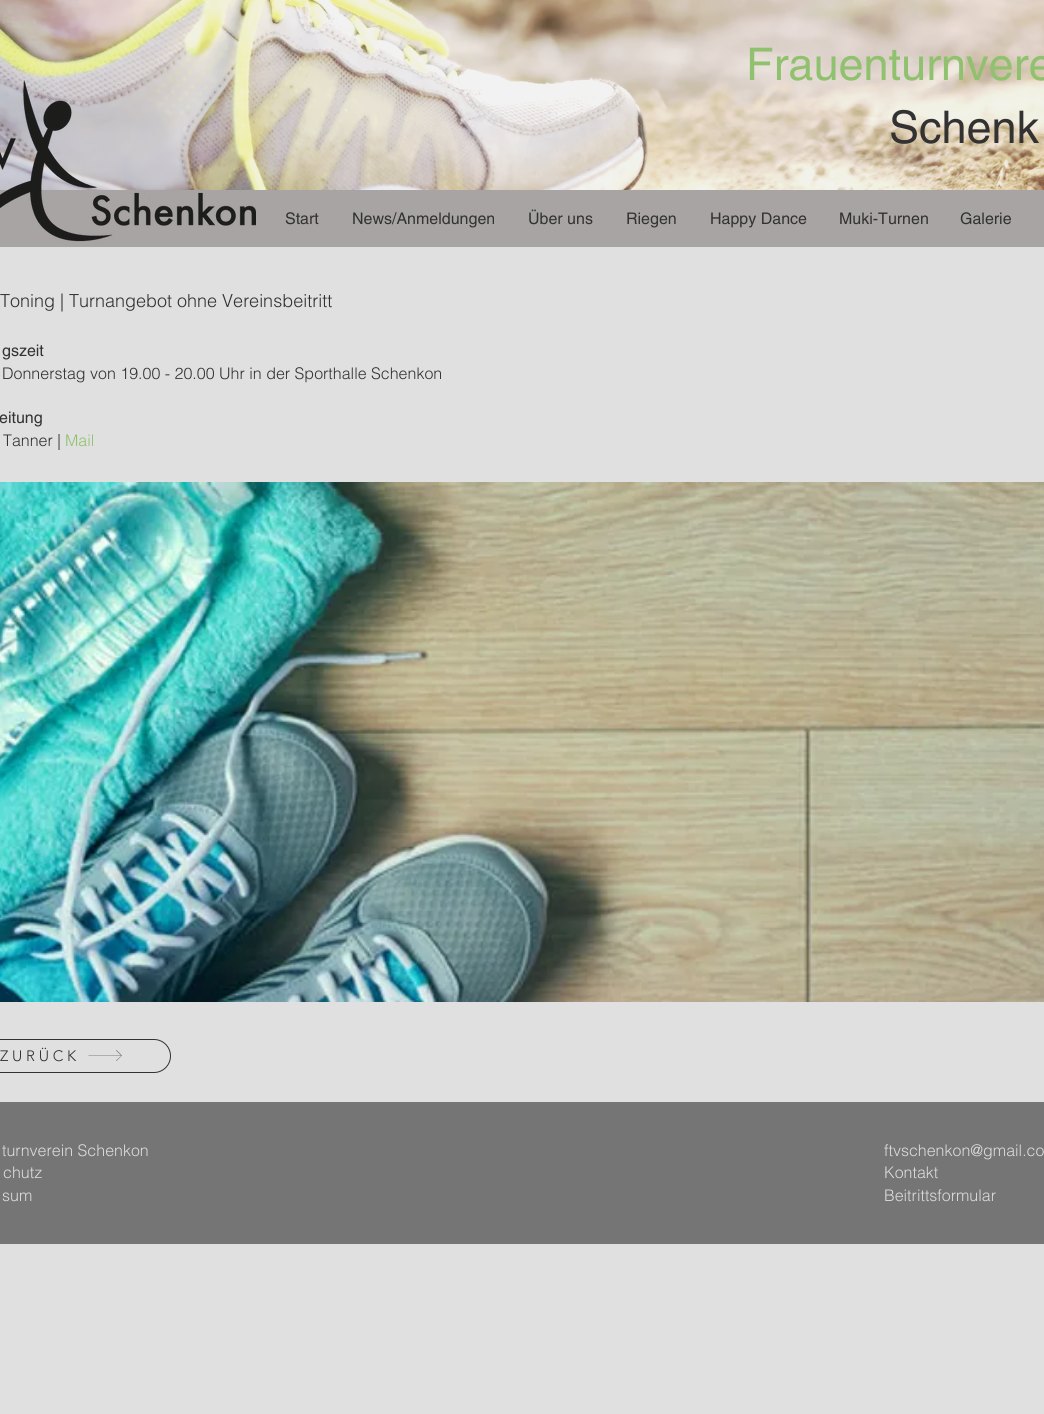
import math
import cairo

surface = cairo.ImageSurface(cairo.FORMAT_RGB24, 1044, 1414)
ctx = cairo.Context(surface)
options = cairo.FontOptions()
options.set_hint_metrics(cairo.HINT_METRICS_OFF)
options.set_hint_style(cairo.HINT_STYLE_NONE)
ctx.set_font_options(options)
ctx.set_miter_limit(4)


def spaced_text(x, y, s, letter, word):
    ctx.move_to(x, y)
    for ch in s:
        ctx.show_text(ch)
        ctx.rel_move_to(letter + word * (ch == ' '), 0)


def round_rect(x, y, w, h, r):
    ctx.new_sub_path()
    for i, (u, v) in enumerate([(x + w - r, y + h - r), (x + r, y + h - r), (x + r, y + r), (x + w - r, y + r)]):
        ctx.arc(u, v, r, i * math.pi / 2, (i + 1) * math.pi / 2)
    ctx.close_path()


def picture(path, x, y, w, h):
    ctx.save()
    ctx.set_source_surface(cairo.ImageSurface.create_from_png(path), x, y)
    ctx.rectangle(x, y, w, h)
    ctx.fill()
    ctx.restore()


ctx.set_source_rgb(0.878, 0.878, 0.878)
ctx.paint()
picture("img1.png", 0, 0, 1044, 190)
ctx.set_source_rgb(0.659, 0.643, 0.643)
ctx.rectangle(0, 190, 1044, 57)
ctx.fill()
picture("img2.png", 0, 80, 256, 162)
ctx.select_font_face("helvetica")
ctx.set_font_size(45)
ctx.set_source_rgb(0.561, 0.757, 0.431)
ctx.move_to(746, 80)
ctx.show_text("Frauenturnvere")
ctx.set_source_rgb(0.2, 0.196, 0.196)
ctx.move_to(889, 143)
ctx.show_text("Schenk")
ctx.set_font_size(16)
ctx.move_to(285, 224)
ctx.show_text("Start")
ctx.move_to(352, 224)
ctx.show_text("News/Anmeldungen")
ctx.move_to(528, 224)
ctx.show_text("Über uns")
ctx.move_to(626, 224)
ctx.show_text("Riegen")
ctx.move_to(710, 224)
ctx.show_text("Happy Dance")
ctx.move_to(839, 224)
ctx.show_text("Muki-Turnen")
ctx.move_to(960, 224)
ctx.show_text("Galerie")
ctx.select_font_face("helvetica Light")
ctx.set_font_size(18)
ctx.move_to(0, 307)
ctx.show_text("Toning | Turnangebot ohne Vereinsbeitritt")
ctx.select_font_face("helvetica")
ctx.set_font_size(16)
ctx.move_to(2, 356)
ctx.show_text("gszeit")
ctx.select_font_face("helvetica Light")
ctx.move_to(2, 379)
ctx.show_text("Donnerstag von 19.00 - 20.00 Uhr in der Sporthalle Schenkon")
ctx.select_font_face("helvetica")
ctx.move_to(-1, 423)
ctx.show_text("eitung")
ctx.select_font_face("helvetica Light")
ctx.move_to(3, 446)
ctx.show_text("Tanner |")
ctx.set_source_rgb(0.561, 0.757, 0.431)
ctx.move_to(65, 446)
ctx.show_text("Mail")
picture("img3.png", 0, 482, 1044, 520)
round_rect(-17.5, 1039.5, 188, 33, 16.5)
ctx.set_source_rgb(0.2, 0.196, 0.196)
ctx.set_line_width(1)
ctx.stroke()
ctx.select_font_face("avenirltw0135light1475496 Light")
ctx.set_font_size(15)
spaced_text(0, 1061, "ZURÜCK", 3.75, 0)
ctx.set_source_rgb(0.471, 0.463, 0.463)
ctx.new_path()
ctx.move_to(116.5, 1050)
ctx.line_to(116, 1050.5)
ctx.line_to(121, 1055.5)
ctx.line_to(88.5, 1055.5)
ctx.line_to(88.5, 1056)
ctx.line_to(121, 1056)
ctx.line_to(116, 1060.5)
ctx.line_to(116.5, 1061)
ctx.line_to(122, 1055.5)
ctx.close_path()
ctx.fill()
ctx.set_source_rgb(0.463, 0.459, 0.459)
ctx.rectangle(0, 1102, 1044, 142)
ctx.fill()
ctx.select_font_face("helvetica Light")
ctx.set_font_size(16)
ctx.set_source_rgb(0.859, 0.859, 0.859)
ctx.move_to(2, 1156)
ctx.show_text("turnverein Schenkon")
ctx.move_to(3, 1178)
ctx.show_text("chutz")
ctx.move_to(2, 1201)
ctx.show_text("sum")
ctx.move_to(884, 1156)
ctx.show_text("ftvschenkon@gmail.co")
ctx.move_to(884, 1178)
ctx.show_text("Kontakt")
ctx.move_to(884, 1201)
ctx.show_text("Beitrittsformular")
surface.write_to_png("page.png")
